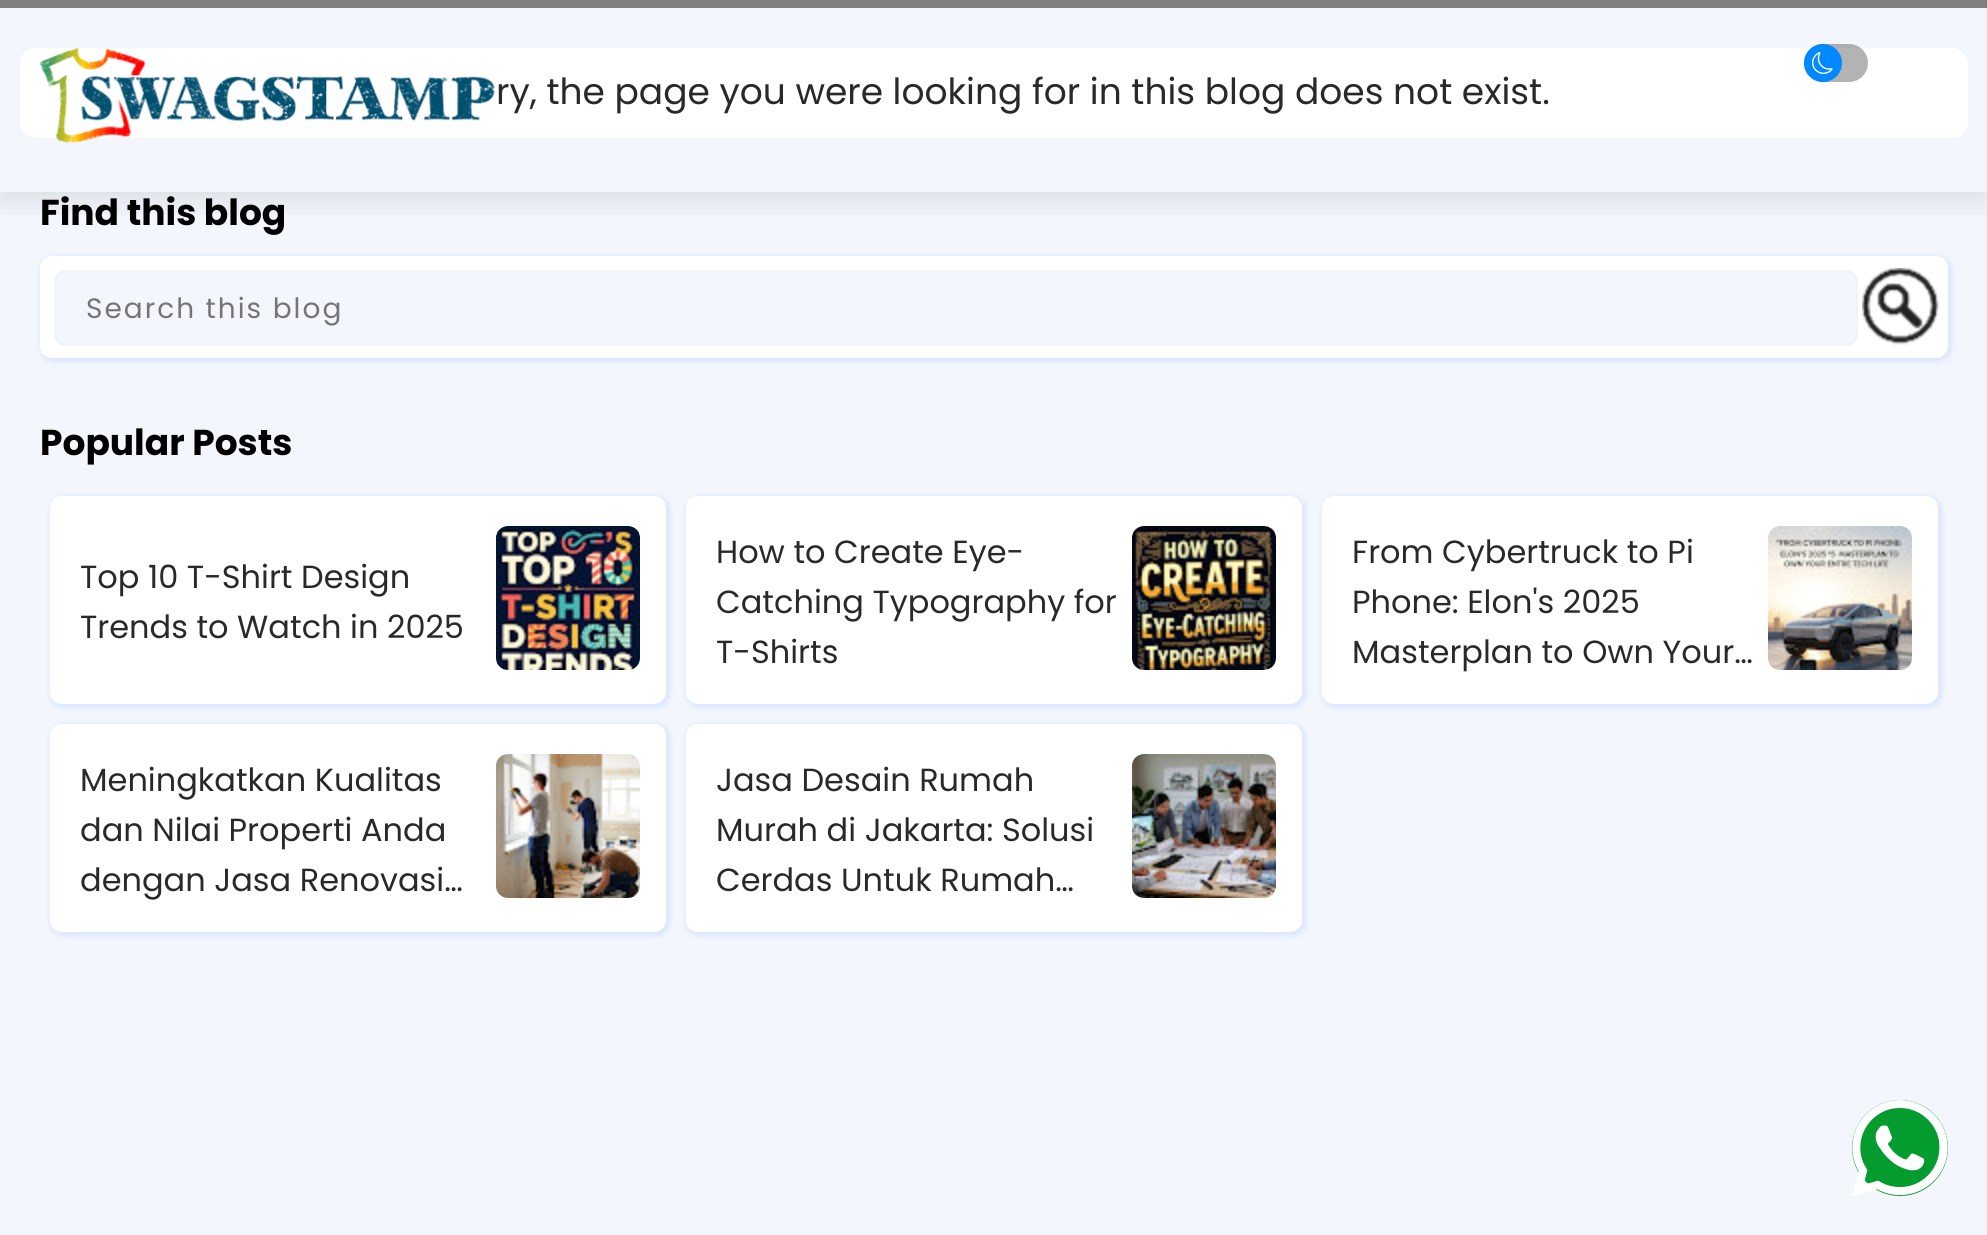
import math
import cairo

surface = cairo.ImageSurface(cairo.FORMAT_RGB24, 1987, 1235)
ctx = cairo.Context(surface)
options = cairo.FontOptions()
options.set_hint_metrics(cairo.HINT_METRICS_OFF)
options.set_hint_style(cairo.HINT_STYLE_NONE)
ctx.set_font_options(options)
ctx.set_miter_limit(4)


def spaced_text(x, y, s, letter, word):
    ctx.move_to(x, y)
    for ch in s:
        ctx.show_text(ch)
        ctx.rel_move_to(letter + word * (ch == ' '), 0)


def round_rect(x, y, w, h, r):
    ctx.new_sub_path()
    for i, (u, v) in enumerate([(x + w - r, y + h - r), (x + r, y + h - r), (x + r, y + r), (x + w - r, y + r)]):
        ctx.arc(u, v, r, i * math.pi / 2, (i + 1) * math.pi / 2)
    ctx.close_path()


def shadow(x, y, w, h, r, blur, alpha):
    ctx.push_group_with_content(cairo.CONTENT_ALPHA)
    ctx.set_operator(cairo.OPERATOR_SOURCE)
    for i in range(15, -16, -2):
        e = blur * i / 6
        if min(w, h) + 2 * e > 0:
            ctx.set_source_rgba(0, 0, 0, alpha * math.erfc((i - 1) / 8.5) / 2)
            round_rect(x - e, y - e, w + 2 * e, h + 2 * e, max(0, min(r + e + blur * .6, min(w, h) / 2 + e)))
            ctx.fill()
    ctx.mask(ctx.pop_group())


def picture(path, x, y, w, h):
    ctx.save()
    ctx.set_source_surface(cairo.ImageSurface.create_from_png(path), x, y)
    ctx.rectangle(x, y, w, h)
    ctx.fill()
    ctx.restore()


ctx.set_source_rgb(0.502, 0.502, 0.502)
ctx.paint()
ctx.set_source_rgb(0.953, 0.965, 0.992)
ctx.rectangle(0, 8, 1987, 1227)
ctx.fill()
ctx.set_source_rgb(1, 1, 1)
round_rect(20, 48, 1948, 90, 16)
ctx.fill()
ctx.save()
ctx.rectangle(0, 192, 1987, 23)
ctx.clip()
ctx.set_source_rgb(0, 0, 0)
shadow(0, 10, 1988, 192, 0, 15, 0.1)
ctx.restore()
ctx.set_source_rgba(0, 0, 0, 0.3)
round_rect(1804, 44, 64, 38, 19)
ctx.fill()
ctx.set_source_rgb(0, 0.533, 1)
ctx.arc(1823, 63, 19, 0, 2 * math.pi)
ctx.fill()
picture("img1.png", 1812, 52, 21, 22)
picture("img2.png", 39, 47, 456, 97)
ctx.select_font_face("Poppins")
ctx.set_font_size(36)
ctx.set_source_rgb(0.161, 0.161, 0.161)
ctx.move_to(496, 104)
ctx.show_text("ry, the page you were looking for in this blog does not exist.")
ctx.select_font_face("Poppins", cairo.FONT_SLANT_NORMAL, cairo.FONT_WEIGHT_BOLD)
ctx.set_source_rgb(0, 0, 0)
ctx.move_to(40, 225)
ctx.show_text("Find this blog")
ctx.set_source_rgb(0.855, 0.898, 0.996)
shadow(40, 256, 1912, 106, 14, 3, 1)
ctx.set_source_rgb(1, 1, 1)
round_rect(40, 256, 1908, 102, 12)
ctx.fill()
ctx.set_source_rgb(0.953, 0.965, 0.992)
round_rect(55, 271, 1802, 74, 11)
ctx.fill_preserve()
ctx.set_source_rgb(0.945, 0.953, 0.965)
ctx.stroke()
ctx.select_font_face("Poppins")
ctx.set_font_size(28)
ctx.set_source_rgb(0.459, 0.459, 0.459)
spaced_text(86, 318, "Search this blog", 2, 0)
picture("img3.png", 1862, 268, 77, 77)
ctx.select_font_face("Poppins", cairo.FONT_SLANT_NORMAL, cairo.FONT_WEIGHT_BOLD)
ctx.set_font_size(36)
ctx.set_source_rgb(0, 0, 0)
ctx.move_to(40, 455)
ctx.show_text("Popular Posts")
ctx.set_source_rgb(0.855, 0.898, 0.996)
shadow(50, 496, 620, 212, 14, 3, 1)
ctx.set_source_rgb(1, 1, 1)
round_rect(50, 496, 616, 208, 12)
ctx.fill()
ctx.select_font_face("Poppins")
ctx.set_font_size(32)
ctx.set_source_rgb(0.161, 0.161, 0.161)
ctx.move_to(80, 588)
ctx.show_text("Top 10 T-Shirt Design")
ctx.move_to(80, 638)
ctx.show_text("Trends to Watch in 2025")
picture("img4.png", 496, 526, 144, 144)
ctx.set_source_rgb(0.855, 0.898, 0.996)
shadow(686, 496, 620, 212, 14, 3, 1)
ctx.set_source_rgb(1, 1, 1)
round_rect(686, 496, 616, 208, 12)
ctx.fill()
ctx.set_source_rgb(0.161, 0.161, 0.161)
ctx.move_to(716, 563)
ctx.show_text("How to Create Eye-")
ctx.move_to(716, 613)
ctx.show_text("Catching Typography for")
ctx.move_to(716, 663)
ctx.show_text("T-Shirts")
picture("img5.png", 1132, 526, 144, 144)
ctx.set_source_rgb(0.855, 0.898, 0.996)
shadow(1322, 496, 620, 212, 14, 3, 1)
ctx.set_source_rgb(1, 1, 1)
round_rect(1322, 496, 616, 208, 12)
ctx.fill()
ctx.set_source_rgb(0.161, 0.161, 0.161)
ctx.move_to(1352, 563)
ctx.show_text("From Cybertruck to Pi")
ctx.move_to(1352, 613)
ctx.show_text("Phone: Elon's 2025")
ctx.move_to(1352, 663)
ctx.show_text("Masterplan to Own Your…")
picture("img6.png", 1768, 526, 144, 144)
ctx.set_source_rgb(0.855, 0.898, 0.996)
shadow(50, 724, 620, 212, 14, 3, 1)
ctx.set_source_rgb(1, 1, 1)
round_rect(50, 724, 616, 208, 12)
ctx.fill()
ctx.set_source_rgb(0.161, 0.161, 0.161)
ctx.move_to(80, 791)
ctx.show_text("Meningkatkan Kualitas")
ctx.move_to(80, 841)
ctx.show_text("dan Nilai Properti Anda")
ctx.move_to(80, 891)
ctx.show_text("dengan Jasa Renovasi…")
picture("img7.png", 496, 754, 144, 144)
ctx.set_source_rgb(0.855, 0.898, 0.996)
shadow(686, 724, 620, 212, 14, 3, 1)
ctx.set_source_rgb(1, 1, 1)
round_rect(686, 724, 616, 208, 12)
ctx.fill()
ctx.set_source_rgb(0.161, 0.161, 0.161)
ctx.move_to(716, 791)
ctx.show_text("Jasa Desain Rumah")
ctx.move_to(716, 841)
ctx.show_text("Murah di Jakarta: Solusi")
ctx.move_to(716, 891)
ctx.show_text("Cerdas Untuk Rumah…")
picture("img8.png", 1132, 754, 144, 144)
ctx.set_source_rgb(0.016, 0.612, 0.184)
ctx.arc(1900, 1148, 48, 0, 2 * math.pi)
ctx.fill()
picture("img9.png", 1852, 1100, 96, 96)
surface.write_to_png("page.png")
